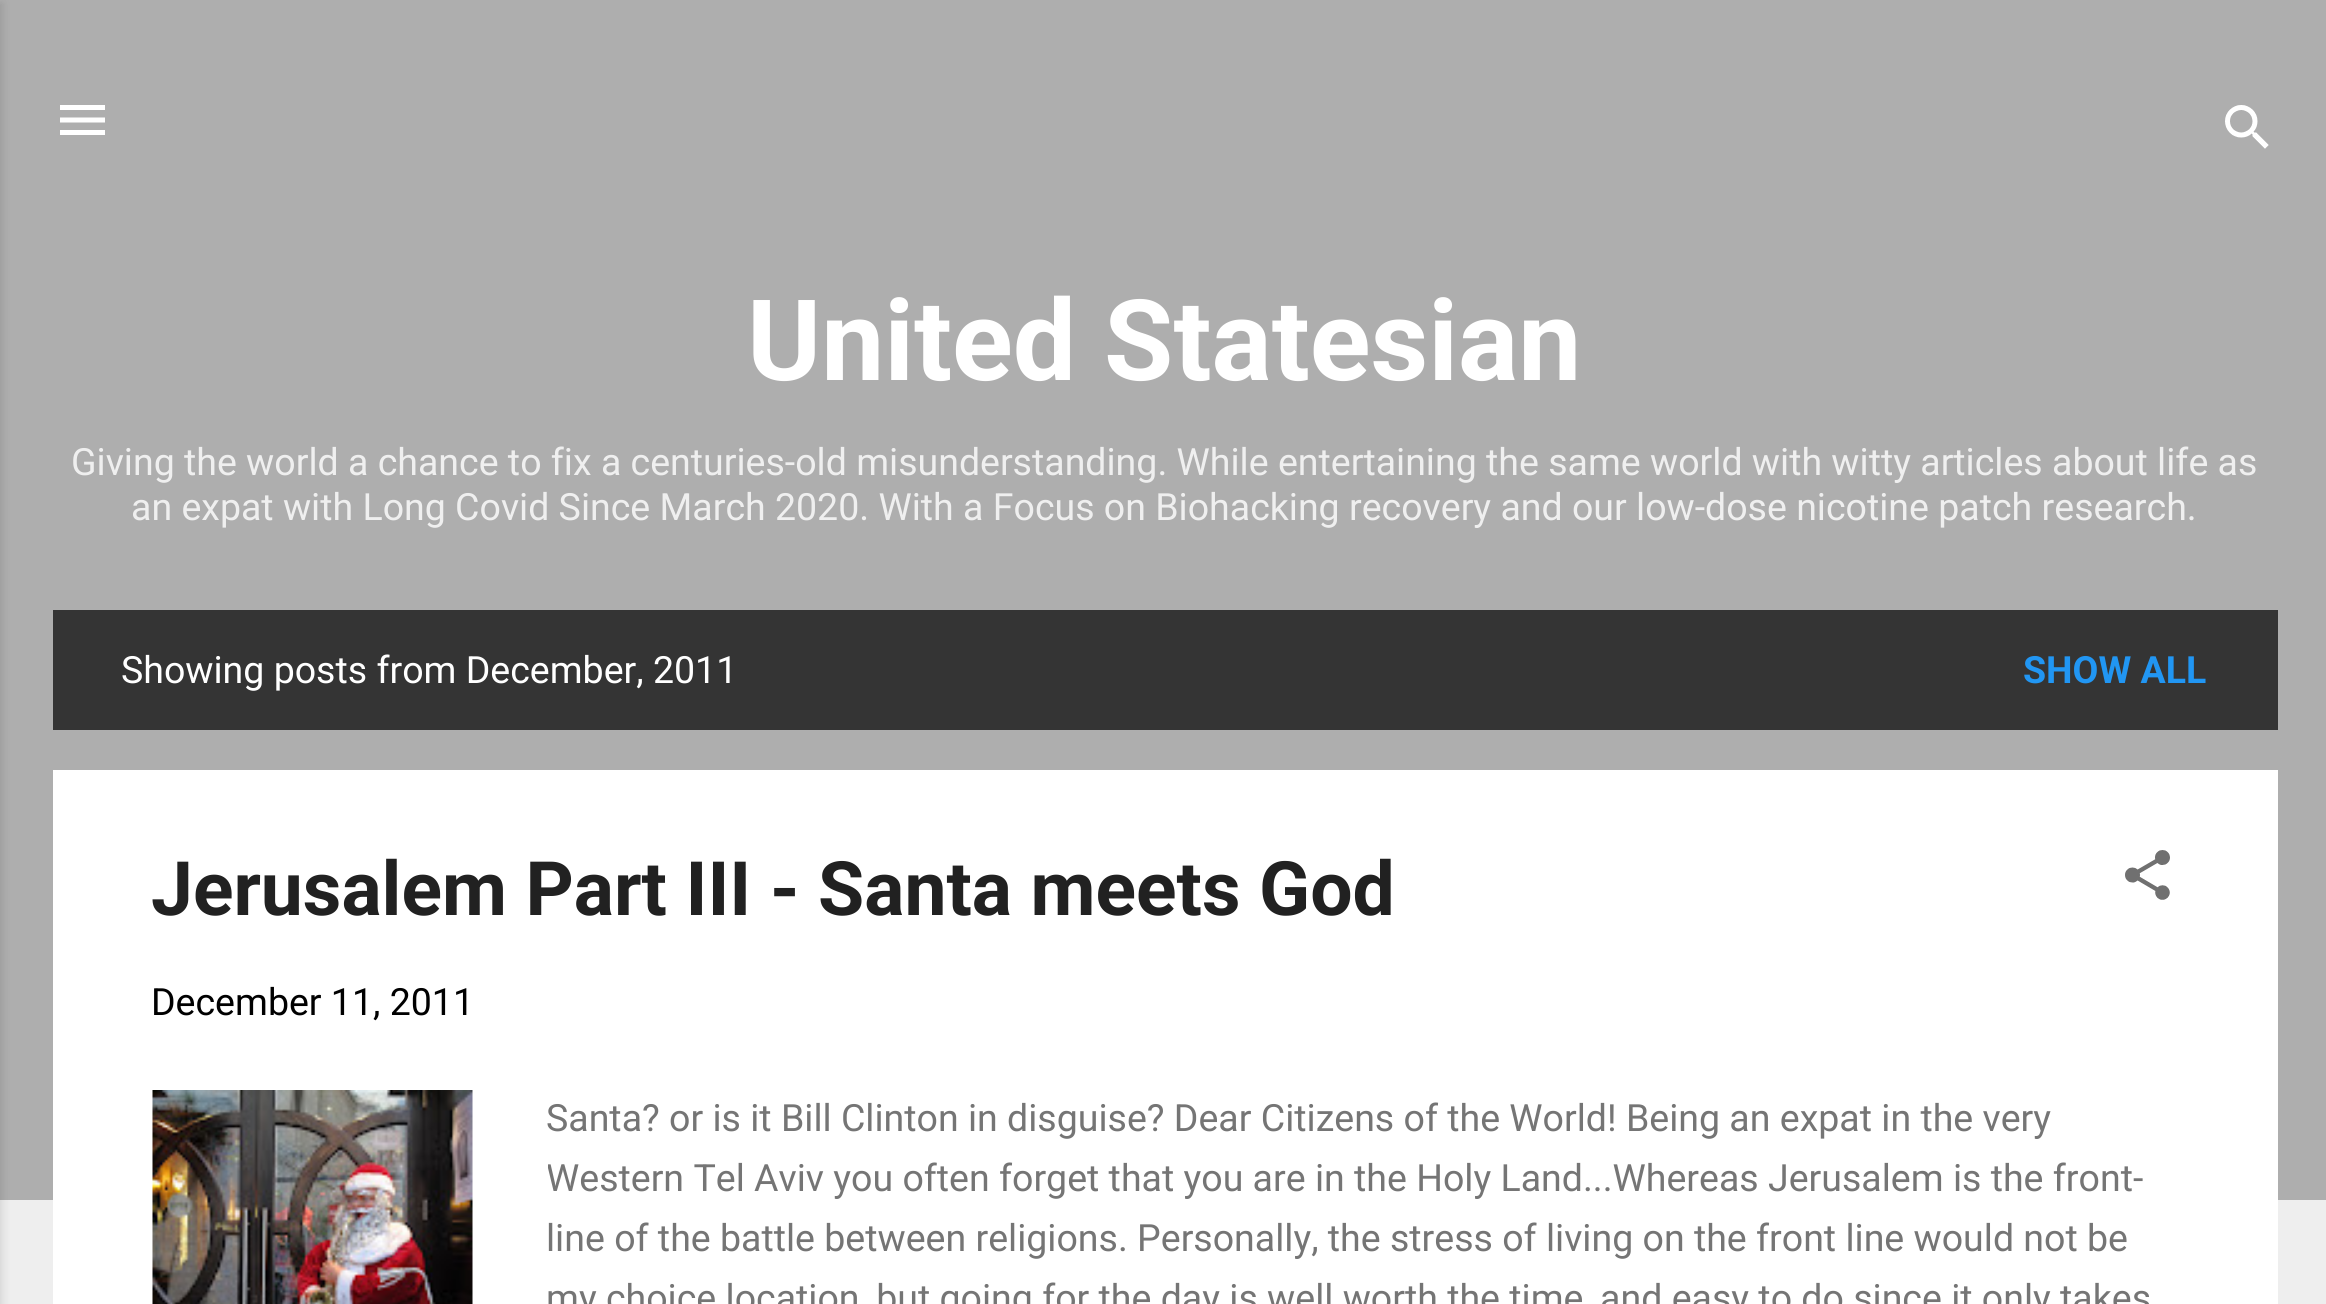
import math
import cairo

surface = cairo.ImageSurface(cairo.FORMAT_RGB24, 2326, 1304)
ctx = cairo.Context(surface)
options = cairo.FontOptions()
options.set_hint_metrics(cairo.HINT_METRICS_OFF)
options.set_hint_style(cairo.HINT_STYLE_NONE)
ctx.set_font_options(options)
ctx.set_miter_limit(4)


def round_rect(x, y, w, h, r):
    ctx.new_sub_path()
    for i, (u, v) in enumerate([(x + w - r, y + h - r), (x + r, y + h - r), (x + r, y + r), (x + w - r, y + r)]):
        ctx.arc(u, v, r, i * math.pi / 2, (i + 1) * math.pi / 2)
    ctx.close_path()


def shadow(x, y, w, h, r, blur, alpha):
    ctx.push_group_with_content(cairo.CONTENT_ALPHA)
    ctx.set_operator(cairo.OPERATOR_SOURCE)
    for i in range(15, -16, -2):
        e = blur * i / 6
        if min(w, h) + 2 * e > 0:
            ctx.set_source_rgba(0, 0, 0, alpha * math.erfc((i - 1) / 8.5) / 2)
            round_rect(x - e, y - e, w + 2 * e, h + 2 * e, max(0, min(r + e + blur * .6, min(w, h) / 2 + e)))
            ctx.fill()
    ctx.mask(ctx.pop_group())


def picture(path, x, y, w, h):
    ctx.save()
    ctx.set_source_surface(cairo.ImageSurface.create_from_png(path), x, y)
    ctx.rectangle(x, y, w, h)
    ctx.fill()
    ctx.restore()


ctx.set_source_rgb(0.933, 0.933, 0.933)
ctx.paint()
ctx.set_source_rgb(0.682, 0.682, 0.682)
ctx.rectangle(0, 0, 2326, 1200)
ctx.fill()
ctx.set_source_rgb(0, 0, 0)
shadow(-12, 3, 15, 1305, 0, 4, 0.1)
picture("img1.png", 60, 105, 45, 30)
picture("img2.png", 2225, 105, 44, 44)
ctx.select_font_face("Roboto", cairo.FONT_SLANT_NORMAL, cairo.FONT_WEIGHT_BOLD)
ctx.set_font_size(112.5)
ctx.set_source_rgb(1, 1, 1)
ctx.move_to(747, 380)
ctx.show_text("United Statesian")
ctx.select_font_face("Roboto")
ctx.set_font_size(37.5)
ctx.set_source_rgb(0.937, 0.937, 0.937)
ctx.move_to(71, 475)
ctx.show_text("Giving the world a chance to fix a centuries-old misunderstanding. While entertaining the same world with witty articles about life as")
ctx.move_to(131, 520)
ctx.show_text("an expat with Long Covid Since March 2020. With a Focus on Biohacking recovery and our low-dose nicotine patch research.")
ctx.set_source_rgb(0.204, 0.204, 0.204)
ctx.rectangle(53, 610, 2225, 120)
ctx.fill()
ctx.set_source_rgb(1, 1, 1)
ctx.move_to(121, 683)
ctx.show_text("Showing posts from December, 2011")
ctx.select_font_face("Roboto", cairo.FONT_SLANT_NORMAL, cairo.FONT_WEIGHT_BOLD)
ctx.set_source_rgb(0.129, 0.588, 0.953)
ctx.move_to(2023, 683)
ctx.show_text("SHOW ALL")
ctx.set_source_rgb(1, 1, 1)
ctx.rectangle(53, 770, 2225, 534)
ctx.fill()
ctx.set_font_size(75)
ctx.set_source_rgb(0.129, 0.129, 0.129)
ctx.move_to(151, 915)
ctx.show_text("Jerusalem Part III - Santa meets God")
picture("img3.png", 2125, 850, 45, 50)
ctx.select_font_face("Roboto")
ctx.set_font_size(37.5)
ctx.set_source_rgb(0, 0, 0)
ctx.move_to(151, 1015)
ctx.show_text("December 11, 2011")
picture("img4.png", 152, 1090, 321, 214)
ctx.set_source_rgb(0.459, 0.459, 0.459)
ctx.move_to(546, 1131)
ctx.show_text("Santa? or is it Bill Clinton in disguise? Dear Citizens of the World! Being an expat in the very")
ctx.save()
ctx.rectangle(548, 1090, 1630, 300)
ctx.clip()
ctx.move_to(546, 1191)
ctx.show_text("Western Tel Aviv you often forget that you are in the Holy Land...Whereas Jerusalem is the front-")
ctx.restore()
ctx.move_to(546, 1251)
ctx.show_text("line of the battle between religions. Personally, the stress of living on the front line would not be")
ctx.move_to(546, 1311)
ctx.show_text("my choice location, but going for the day is well worth the time, and easy to do since it only takes")
surface.write_to_png("page.png")
